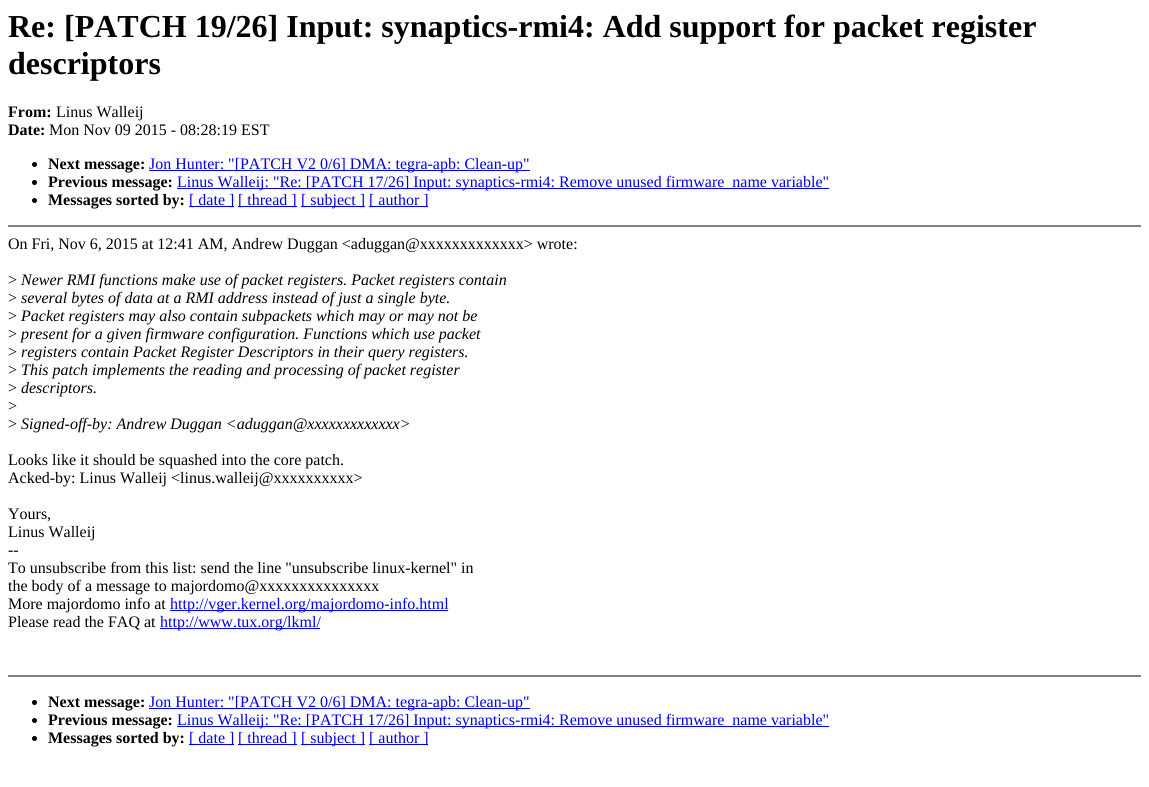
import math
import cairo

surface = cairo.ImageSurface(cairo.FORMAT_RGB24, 1149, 787)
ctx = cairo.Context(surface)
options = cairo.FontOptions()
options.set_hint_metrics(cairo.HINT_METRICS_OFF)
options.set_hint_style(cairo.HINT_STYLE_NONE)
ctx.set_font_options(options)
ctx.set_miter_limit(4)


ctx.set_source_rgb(1, 1, 1)
ctx.paint()
ctx.select_font_face("Liberation Serif", cairo.FONT_SLANT_NORMAL, cairo.FONT_WEIGHT_BOLD)
ctx.set_font_size(32)
ctx.set_source_rgb(0, 0, 0)
ctx.move_to(8, 37)
ctx.show_text("Re: [PATCH 19/26] Input: synaptics-rmi4: Add support for packet register")
ctx.move_to(8, 74)
ctx.show_text("descriptors")
ctx.set_font_size(16)
ctx.move_to(8, 117)
ctx.show_text("From:")
ctx.select_font_face("Liberation Serif")
ctx.move_to(56, 117)
ctx.show_text("Linus Walleij")
ctx.select_font_face("Liberation Serif", cairo.FONT_SLANT_NORMAL, cairo.FONT_WEIGHT_BOLD)
ctx.move_to(8, 135)
ctx.show_text("Date:")
ctx.select_font_face("Liberation Serif")
ctx.move_to(49, 135)
ctx.show_text("Mon Nov 09 2015 - 08:28:19 EST")
ctx.new_path()
ctx.arc(34.5, 164.5, 2.5, 0, 2 * math.pi)
ctx.fill()
ctx.select_font_face("Liberation Serif", cairo.FONT_SLANT_NORMAL, cairo.FONT_WEIGHT_BOLD)
ctx.move_to(48, 169)
ctx.show_text("Next message:")
ctx.set_source_rgb(0, 0, 0.933)
ctx.rectangle(149, 170, 381, 1)
ctx.fill()
ctx.select_font_face("Liberation Serif")
ctx.move_to(149, 169)
ctx.show_text("Jon Hunter: \"[PATCH V2 0/6] DMA: tegra-apb: Clean-up\"")
ctx.set_source_rgb(0, 0, 0)
ctx.new_path()
ctx.arc(34.5, 182.5, 2.5, 0, 2 * math.pi)
ctx.fill()
ctx.select_font_face("Liberation Serif", cairo.FONT_SLANT_NORMAL, cairo.FONT_WEIGHT_BOLD)
ctx.move_to(48, 187)
ctx.show_text("Previous message:")
ctx.set_source_rgb(0, 0, 0.933)
ctx.rectangle(177, 188, 652, 1)
ctx.fill()
ctx.select_font_face("Liberation Serif")
ctx.move_to(177, 187)
ctx.show_text("Linus Walleij: \"Re: [PATCH 17/26] Input: synaptics-rmi4: Remove unused firmware_name variable\"")
ctx.set_source_rgb(0, 0, 0)
ctx.new_path()
ctx.arc(34.5, 200.5, 2.5, 0, 2 * math.pi)
ctx.fill()
ctx.select_font_face("Liberation Serif", cairo.FONT_SLANT_NORMAL, cairo.FONT_WEIGHT_BOLD)
ctx.move_to(48, 205)
ctx.show_text("Messages sorted by:")
ctx.set_source_rgb(0, 0, 0.933)
ctx.rectangle(189, 206, 45, 1)
ctx.fill()
ctx.select_font_face("Liberation Serif")
ctx.move_to(189, 205)
ctx.show_text("[ date ]")
ctx.rectangle(238, 206, 59, 1)
ctx.fill()
ctx.move_to(238, 205)
ctx.show_text("[ thread ]")
ctx.rectangle(301, 206, 64, 1)
ctx.fill()
ctx.move_to(301, 205)
ctx.show_text("[ subject ]")
ctx.rectangle(369, 206, 59, 1)
ctx.fill()
ctx.move_to(369, 205)
ctx.show_text("[ author ]")
ctx.set_source_rgb(0.502, 0.502, 0.502)
ctx.rectangle(8, 225, 1133, 2)
ctx.fill()
ctx.set_source_rgb(0, 0, 0)
ctx.move_to(8, 249)
ctx.show_text("On Fri, Nov 6, 2015 at 12:41 AM, Andrew Duggan <aduggan@xxxxxxxxxxxxx> wrote:")
ctx.move_to(8, 285)
ctx.show_text(">")
ctx.select_font_face("Liberation Serif", cairo.FONT_SLANT_ITALIC)
ctx.move_to(21, 285)
ctx.show_text("Newer RMI functions make use of packet registers. Packet registers contain")
ctx.select_font_face("Liberation Serif")
ctx.move_to(8, 303)
ctx.show_text(">")
ctx.select_font_face("Liberation Serif", cairo.FONT_SLANT_ITALIC)
ctx.move_to(21, 303)
ctx.show_text("several bytes of data at a RMI address instead of just a single byte.")
ctx.select_font_face("Liberation Serif")
ctx.move_to(8, 321)
ctx.show_text(">")
ctx.select_font_face("Liberation Serif", cairo.FONT_SLANT_ITALIC)
ctx.move_to(21, 321)
ctx.show_text("Packet registers may also contain subpackets which may or may not be")
ctx.select_font_face("Liberation Serif")
ctx.move_to(8, 339)
ctx.show_text(">")
ctx.select_font_face("Liberation Serif", cairo.FONT_SLANT_ITALIC)
ctx.move_to(21, 339)
ctx.show_text("present for a given firmware configuration. Functions which use packet")
ctx.select_font_face("Liberation Serif")
ctx.move_to(8, 357)
ctx.show_text(">")
ctx.select_font_face("Liberation Serif", cairo.FONT_SLANT_ITALIC)
ctx.move_to(21, 357)
ctx.show_text("registers contain Packet Register Descriptors in their query registers.")
ctx.select_font_face("Liberation Serif")
ctx.move_to(8, 375)
ctx.show_text(">")
ctx.select_font_face("Liberation Serif", cairo.FONT_SLANT_ITALIC)
ctx.move_to(21, 375)
ctx.show_text("This patch implements the reading and processing of packet register")
ctx.select_font_face("Liberation Serif")
ctx.move_to(8, 393)
ctx.show_text(">")
ctx.select_font_face("Liberation Serif", cairo.FONT_SLANT_ITALIC)
ctx.move_to(21, 393)
ctx.show_text("descriptors.")
ctx.select_font_face("Liberation Serif")
ctx.move_to(8, 411)
ctx.show_text(">")
ctx.move_to(8, 429)
ctx.show_text(">")
ctx.select_font_face("Liberation Serif", cairo.FONT_SLANT_ITALIC)
ctx.move_to(21, 429)
ctx.show_text("Signed-off-by: Andrew Duggan <aduggan@xxxxxxxxxxxxx>")
ctx.select_font_face("Liberation Serif")
ctx.move_to(8, 465)
ctx.show_text("Looks like it should be squashed into the core patch.")
ctx.move_to(8, 483)
ctx.show_text("Acked-by: Linus Walleij <linus.walleij@xxxxxxxxxx>")
ctx.move_to(8, 519)
ctx.show_text("Yours,")
ctx.move_to(8, 537)
ctx.show_text("Linus Walleij")
ctx.move_to(8, 555)
ctx.show_text("--")
ctx.move_to(8, 573)
ctx.show_text("To unsubscribe from this list: send the line \"unsubscribe linux-kernel\" in")
ctx.move_to(8, 591)
ctx.show_text("the body of a message to majordomo@xxxxxxxxxxxxxxx")
ctx.move_to(8, 609)
ctx.show_text("More majordomo info at")
ctx.set_source_rgb(0, 0, 0.933)
ctx.rectangle(170, 610, 278, 1)
ctx.fill()
ctx.move_to(170, 609)
ctx.show_text("http://vger.kernel.org/majordomo-info.html")
ctx.set_source_rgb(0, 0, 0)
ctx.move_to(8, 627)
ctx.show_text("Please read the FAQ at")
ctx.set_source_rgb(0, 0, 0.933)
ctx.rectangle(160, 628, 160, 1)
ctx.fill()
ctx.move_to(160, 627)
ctx.show_text("http://www.tux.org/lkml/")
ctx.set_source_rgb(0.502, 0.502, 0.502)
ctx.rectangle(8, 675, 1133, 2)
ctx.fill()
ctx.set_source_rgb(0, 0, 0)
ctx.arc(34.5, 702.5, 2.5, 0, 2 * math.pi)
ctx.fill()
ctx.select_font_face("Liberation Serif", cairo.FONT_SLANT_NORMAL, cairo.FONT_WEIGHT_BOLD)
ctx.move_to(48, 707)
ctx.show_text("Next message:")
ctx.set_source_rgb(0, 0, 0.933)
ctx.rectangle(149, 708, 381, 1)
ctx.fill()
ctx.select_font_face("Liberation Serif")
ctx.move_to(149, 707)
ctx.show_text("Jon Hunter: \"[PATCH V2 0/6] DMA: tegra-apb: Clean-up\"")
ctx.set_source_rgb(0, 0, 0)
ctx.new_path()
ctx.arc(34.5, 720.5, 2.5, 0, 2 * math.pi)
ctx.fill()
ctx.select_font_face("Liberation Serif", cairo.FONT_SLANT_NORMAL, cairo.FONT_WEIGHT_BOLD)
ctx.move_to(48, 725)
ctx.show_text("Previous message:")
ctx.set_source_rgb(0, 0, 0.933)
ctx.rectangle(177, 726, 652, 1)
ctx.fill()
ctx.select_font_face("Liberation Serif")
ctx.move_to(177, 725)
ctx.show_text("Linus Walleij: \"Re: [PATCH 17/26] Input: synaptics-rmi4: Remove unused firmware_name variable\"")
ctx.set_source_rgb(0, 0, 0)
ctx.new_path()
ctx.arc(34.5, 738.5, 2.5, 0, 2 * math.pi)
ctx.fill()
ctx.select_font_face("Liberation Serif", cairo.FONT_SLANT_NORMAL, cairo.FONT_WEIGHT_BOLD)
ctx.move_to(48, 743)
ctx.show_text("Messages sorted by:")
ctx.set_source_rgb(0, 0, 0.933)
ctx.rectangle(189, 744, 45, 1)
ctx.fill()
ctx.select_font_face("Liberation Serif")
ctx.move_to(189, 743)
ctx.show_text("[ date ]")
ctx.rectangle(238, 744, 59, 1)
ctx.fill()
ctx.move_to(238, 743)
ctx.show_text("[ thread ]")
ctx.rectangle(301, 744, 64, 1)
ctx.fill()
ctx.move_to(301, 743)
ctx.show_text("[ subject ]")
ctx.rectangle(369, 744, 59, 1)
ctx.fill()
ctx.move_to(369, 743)
ctx.show_text("[ author ]")
surface.write_to_png("page.png")
